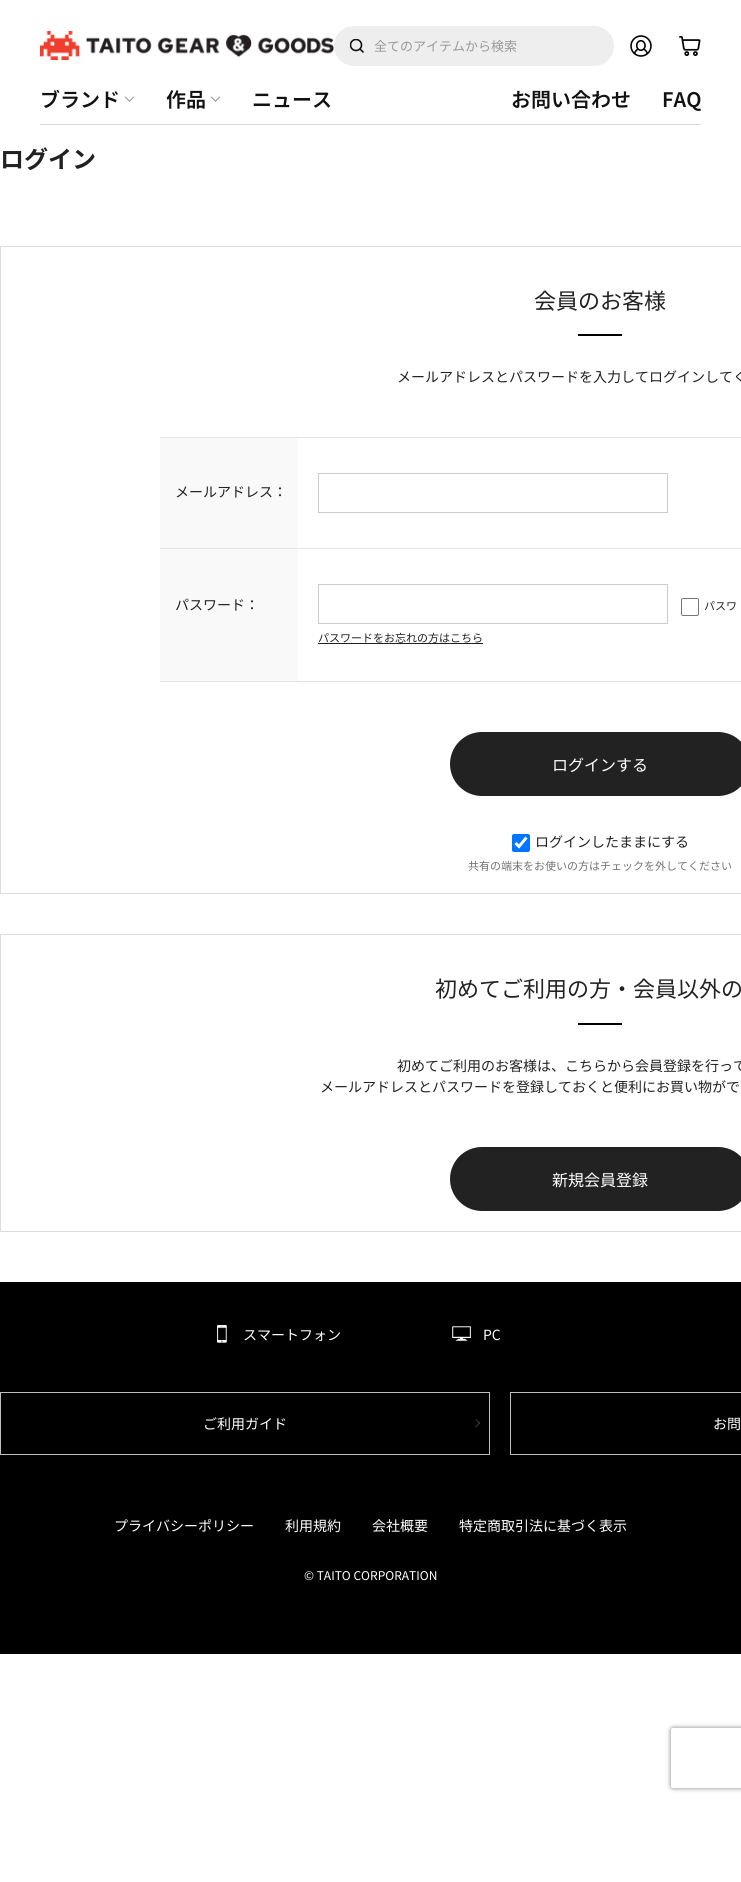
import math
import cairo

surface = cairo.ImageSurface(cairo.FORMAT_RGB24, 741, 1882)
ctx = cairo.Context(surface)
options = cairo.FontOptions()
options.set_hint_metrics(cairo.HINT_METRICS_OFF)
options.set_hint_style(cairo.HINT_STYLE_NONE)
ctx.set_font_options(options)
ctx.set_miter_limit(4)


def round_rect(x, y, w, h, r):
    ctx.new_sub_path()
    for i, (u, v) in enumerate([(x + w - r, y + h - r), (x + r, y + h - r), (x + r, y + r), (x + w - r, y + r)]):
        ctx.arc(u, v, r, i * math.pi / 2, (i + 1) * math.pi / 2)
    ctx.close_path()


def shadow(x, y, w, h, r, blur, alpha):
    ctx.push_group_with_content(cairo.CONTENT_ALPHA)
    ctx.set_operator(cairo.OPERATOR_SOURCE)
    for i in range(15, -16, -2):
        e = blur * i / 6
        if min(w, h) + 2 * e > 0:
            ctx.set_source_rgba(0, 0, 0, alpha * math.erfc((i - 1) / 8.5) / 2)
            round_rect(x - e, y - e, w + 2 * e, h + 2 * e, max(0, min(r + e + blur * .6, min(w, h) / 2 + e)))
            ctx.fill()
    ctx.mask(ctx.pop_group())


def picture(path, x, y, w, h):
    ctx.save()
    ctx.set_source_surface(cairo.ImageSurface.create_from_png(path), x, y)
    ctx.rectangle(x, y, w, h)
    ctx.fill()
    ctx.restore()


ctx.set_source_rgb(1, 1, 1)
ctx.paint()
picture("img1.png", 40, 31, 294, 29)
ctx.set_source_rgb(0.933, 0.933, 0.933)
round_rect(334, 26, 280, 40, 20)
ctx.fill()
ctx.save()
ctx.rectangle(350, 39, 14, 14)
ctx.clip()
ctx.arc(356, 45, 5.5, 0, 2 * math.pi)
ctx.set_source_rgb(0.067, 0.067, 0.067)
ctx.set_line_width(1.6)
ctx.stroke()
ctx.restore()
ctx.new_path()
ctx.move_to(363.5, 52.5)
ctx.line_to(360, 49)
ctx.set_source_rgb(0.067, 0.067, 0.067)
ctx.set_line_width(1.6)
ctx.set_line_join(cairo.LINE_JOIN_ROUND)
ctx.stroke()
ctx.select_font_face("Noto Sans JP")
ctx.set_font_size(13)
ctx.set_source_rgb(0.6, 0.6, 0.6)
ctx.move_to(374, 51)
ctx.show_text("全てのアイテムから検索")
picture("img2.png", 630, 35, 22, 22)
picture("img3.png", 679, 36, 22, 20)
ctx.set_source_rgb(0.867, 0.867, 0.867)
ctx.rectangle(40, 124, 661, 1)
ctx.fill()
ctx.select_font_face("Noto Sans JP SemiBold")
ctx.set_font_size(20)
ctx.set_source_rgb(0.067, 0.067, 0.067)
ctx.move_to(40, 107)
ctx.show_text("ブランド")
ctx.set_source_rgb(0.6, 0.6, 0.6)
ctx.new_path()
ctx.move_to(133.5, 96.5)
ctx.line_to(134.5, 97)
ctx.line_to(129.5, 102)
ctx.line_to(129, 101)
ctx.close_path()
ctx.fill()
ctx.new_path()
ctx.move_to(125.5, 96.5)
ctx.line_to(130, 101)
ctx.line_to(129.5, 102)
ctx.line_to(124.5, 97)
ctx.close_path()
ctx.fill()
ctx.set_source_rgb(0.067, 0.067, 0.067)
ctx.move_to(166, 107)
ctx.show_text("作品")
ctx.set_source_rgb(0.6, 0.6, 0.6)
ctx.new_path()
ctx.move_to(219.5, 96.5)
ctx.line_to(220.5, 97)
ctx.line_to(215.5, 102)
ctx.line_to(215, 101)
ctx.close_path()
ctx.fill()
ctx.new_path()
ctx.move_to(211.5, 96.5)
ctx.line_to(216, 101)
ctx.line_to(215.5, 102)
ctx.line_to(210.5, 97)
ctx.close_path()
ctx.fill()
ctx.set_source_rgb(0.067, 0.067, 0.067)
ctx.move_to(252, 107)
ctx.show_text("ニュース")
ctx.move_to(511, 107)
ctx.show_text("お問い合わせ")
ctx.move_to(662, 107)
ctx.show_text("FAQ")
ctx.select_font_face("Noto Sans JP", cairo.FONT_SLANT_NORMAL, cairo.FONT_WEIGHT_BOLD)
ctx.set_font_size(24)
ctx.set_source_rgb(0.133, 0.133, 0.133)
ctx.move_to(0, 168)
ctx.show_text("ログイン")
ctx.rectangle(0.5, 246.5, 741, 647)
ctx.set_source_rgb(0.863, 0.863, 0.863)
ctx.set_line_width(1)
ctx.set_line_join(cairo.LINE_JOIN_MITER)
ctx.stroke()
ctx.select_font_face("Noto Sans JP")
ctx.set_font_size(22)
ctx.set_source_rgb(0.133, 0.133, 0.133)
ctx.move_to(534, 309)
ctx.show_text("会員のお客様")
ctx.set_source_rgb(0, 0, 0)
ctx.rectangle(578, 334, 44, 2)
ctx.fill()
ctx.set_font_size(14)
ctx.set_source_rgb(0.133, 0.133, 0.133)
ctx.move_to(397, 382)
ctx.show_text("メールアドレスとパスワードを入力してログインしてく")
ctx.set_source_rgb(0.898, 0.898, 0.898)
ctx.rectangle(160, 437, 581, 1)
ctx.fill()
ctx.set_source_rgb(0.976, 0.976, 0.976)
ctx.rectangle(160, 438, 138, 110)
ctx.fill()
ctx.set_source_rgb(0.133, 0.133, 0.133)
ctx.move_to(175, 497)
ctx.show_text("メールアドレス：")
ctx.rectangle(318.5, 473.5, 349, 39)
ctx.set_source_rgb(0.8, 0.8, 0.8)
ctx.stroke()
ctx.set_source_rgb(0.898, 0.898, 0.898)
ctx.rectangle(160, 548, 581, 1)
ctx.fill()
ctx.rectangle(160, 681, 581, 1)
ctx.fill()
ctx.set_source_rgb(0.976, 0.976, 0.976)
ctx.rectangle(160, 549, 138, 132)
ctx.fill()
ctx.set_source_rgb(0.133, 0.133, 0.133)
ctx.move_to(175, 610)
ctx.show_text("パスワード：")
ctx.rectangle(318.5, 584.5, 349, 39)
ctx.set_source_rgb(0.8, 0.8, 0.8)
ctx.stroke()
round_rect(681.5, 598.5, 17, 17, 1.5)
ctx.set_source_rgb(0.463, 0.463, 0.463)
ctx.stroke()
ctx.set_font_size(11)
ctx.set_source_rgb(0.133, 0.133, 0.133)
ctx.move_to(704, 610)
ctx.show_text("パスワ")
ctx.move_to(318, 642)
ctx.show_text("パスワードをお忘れの方はこちら")
ctx.rectangle(318, 643, 165, 1)
ctx.fill()
round_rect(450, 732, 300, 64, 32)
ctx.fill()
ctx.set_font_size(16)
ctx.set_source_rgb(1, 1, 1)
ctx.move_to(552, 771)
ctx.show_text("ログインする")
ctx.set_source_rgb(0, 0.459, 1)
round_rect(512, 834, 18, 18, 2)
ctx.fill()
ctx.new_path()
ctx.move_to(515.5, 843)
ctx.line_to(519, 846.5)
ctx.line_to(526.5, 837.5)
ctx.set_source_rgb(1, 1, 1)
ctx.set_line_width(2.9)
ctx.stroke()
ctx.set_font_size(14)
ctx.set_source_rgb(0.133, 0.133, 0.133)
ctx.move_to(535, 847)
ctx.show_text("ログインしたままにする")
ctx.set_font_size(11)
ctx.set_source_rgb(0.451, 0.451, 0.451)
ctx.move_to(468, 870)
ctx.show_text("共有の端末をお使いの方はチェックを外してください")
ctx.rectangle(0.5, 934.5, 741, 297)
ctx.set_source_rgb(0.863, 0.863, 0.863)
ctx.set_line_width(1)
ctx.stroke()
ctx.set_font_size(22)
ctx.set_source_rgb(0.133, 0.133, 0.133)
ctx.move_to(435, 997)
ctx.show_text("初めてご利用の方・会員以外の")
ctx.set_source_rgb(0, 0, 0)
ctx.rectangle(578, 1023, 44, 2)
ctx.fill()
ctx.set_font_size(14)
ctx.set_source_rgb(0.133, 0.133, 0.133)
ctx.move_to(397, 1071)
ctx.show_text("初めてご利用のお客様は、こちらから会員登録を行って")
ctx.move_to(320, 1092)
ctx.show_text("メールアドレスとパスワードを登録しておくと便利にお買い物がで")
round_rect(450, 1147, 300, 64, 32)
ctx.fill()
ctx.set_font_size(16)
ctx.set_source_rgb(1, 1, 1)
ctx.move_to(552, 1186)
ctx.show_text("新規会員登録")
ctx.set_source_rgb(0, 0, 0)
ctx.rectangle(0, 1282, 741, 372)
ctx.fill()
picture("img4.png", 217, 1325, 10, 18)
ctx.set_font_size(14)
ctx.set_source_rgb(1, 1, 1)
ctx.move_to(243, 1340)
ctx.show_text("スマートフォン")
picture("img5.png", 452, 1326, 19, 15)
ctx.move_to(483, 1340)
ctx.show_text("PC")
ctx.rectangle(0.5, 1392.5, 489, 62)
ctx.set_source_rgb(0.741, 0.741, 0.741)
ctx.stroke()
ctx.set_source_rgb(1, 1, 1)
ctx.move_to(203, 1429)
ctx.show_text("ご利用ガイド")
ctx.set_source_rgb(0.267, 0.267, 0.267)
ctx.new_path()
ctx.move_to(476, 1419)
ctx.line_to(480, 1423)
ctx.line_to(479.5, 1424)
ctx.line_to(475.5, 1419.5)
ctx.close_path()
ctx.fill()
ctx.new_path()
ctx.move_to(479.5, 1422.5)
ctx.line_to(480, 1423)
ctx.line_to(476, 1427.5)
ctx.line_to(475.5, 1426.5)
ctx.close_path()
ctx.fill()
ctx.rectangle(510.5, 1392.5, 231, 62)
ctx.set_source_rgb(0.741, 0.741, 0.741)
ctx.stroke()
ctx.set_source_rgb(1, 1, 1)
ctx.move_to(713, 1429)
ctx.show_text("お問")
ctx.move_to(114, 1531)
ctx.show_text("プライバシーポリシー")
ctx.move_to(285, 1531)
ctx.show_text("利用規約")
ctx.move_to(372, 1531)
ctx.show_text("会社概要")
ctx.move_to(459, 1531)
ctx.show_text("特定商取引法に基づく表示")
ctx.set_font_size(12)
ctx.move_to(304, 1580)
ctx.show_text("© TAITO CORPORATION")
ctx.save()
ctx.set_fill_rule(cairo.FILL_RULE_EVEN_ODD)
ctx.new_path()
ctx.move_to(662, 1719)
ctx.line_to(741, 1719)
ctx.line_to(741, 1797)
ctx.line_to(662, 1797)
ctx.close_path()
ctx.move_to(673, 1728)
ctx.line_to(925, 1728)
ctx.curve_to(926, 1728, 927, 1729, 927, 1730)
ctx.line_to(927, 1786)
ctx.curve_to(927, 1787, 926, 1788, 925, 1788)
ctx.line_to(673, 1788)
ctx.curve_to(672, 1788, 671, 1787, 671, 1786)
ctx.line_to(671, 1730)
ctx.curve_to(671, 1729, 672, 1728, 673, 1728)
ctx.close_path()
ctx.clip()
ctx.set_source_rgb(0.502, 0.502, 0.502)
shadow(671, 1728, 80, 60, 2, 2.5, 1)
ctx.restore()
surface.write_to_png("page.png")
